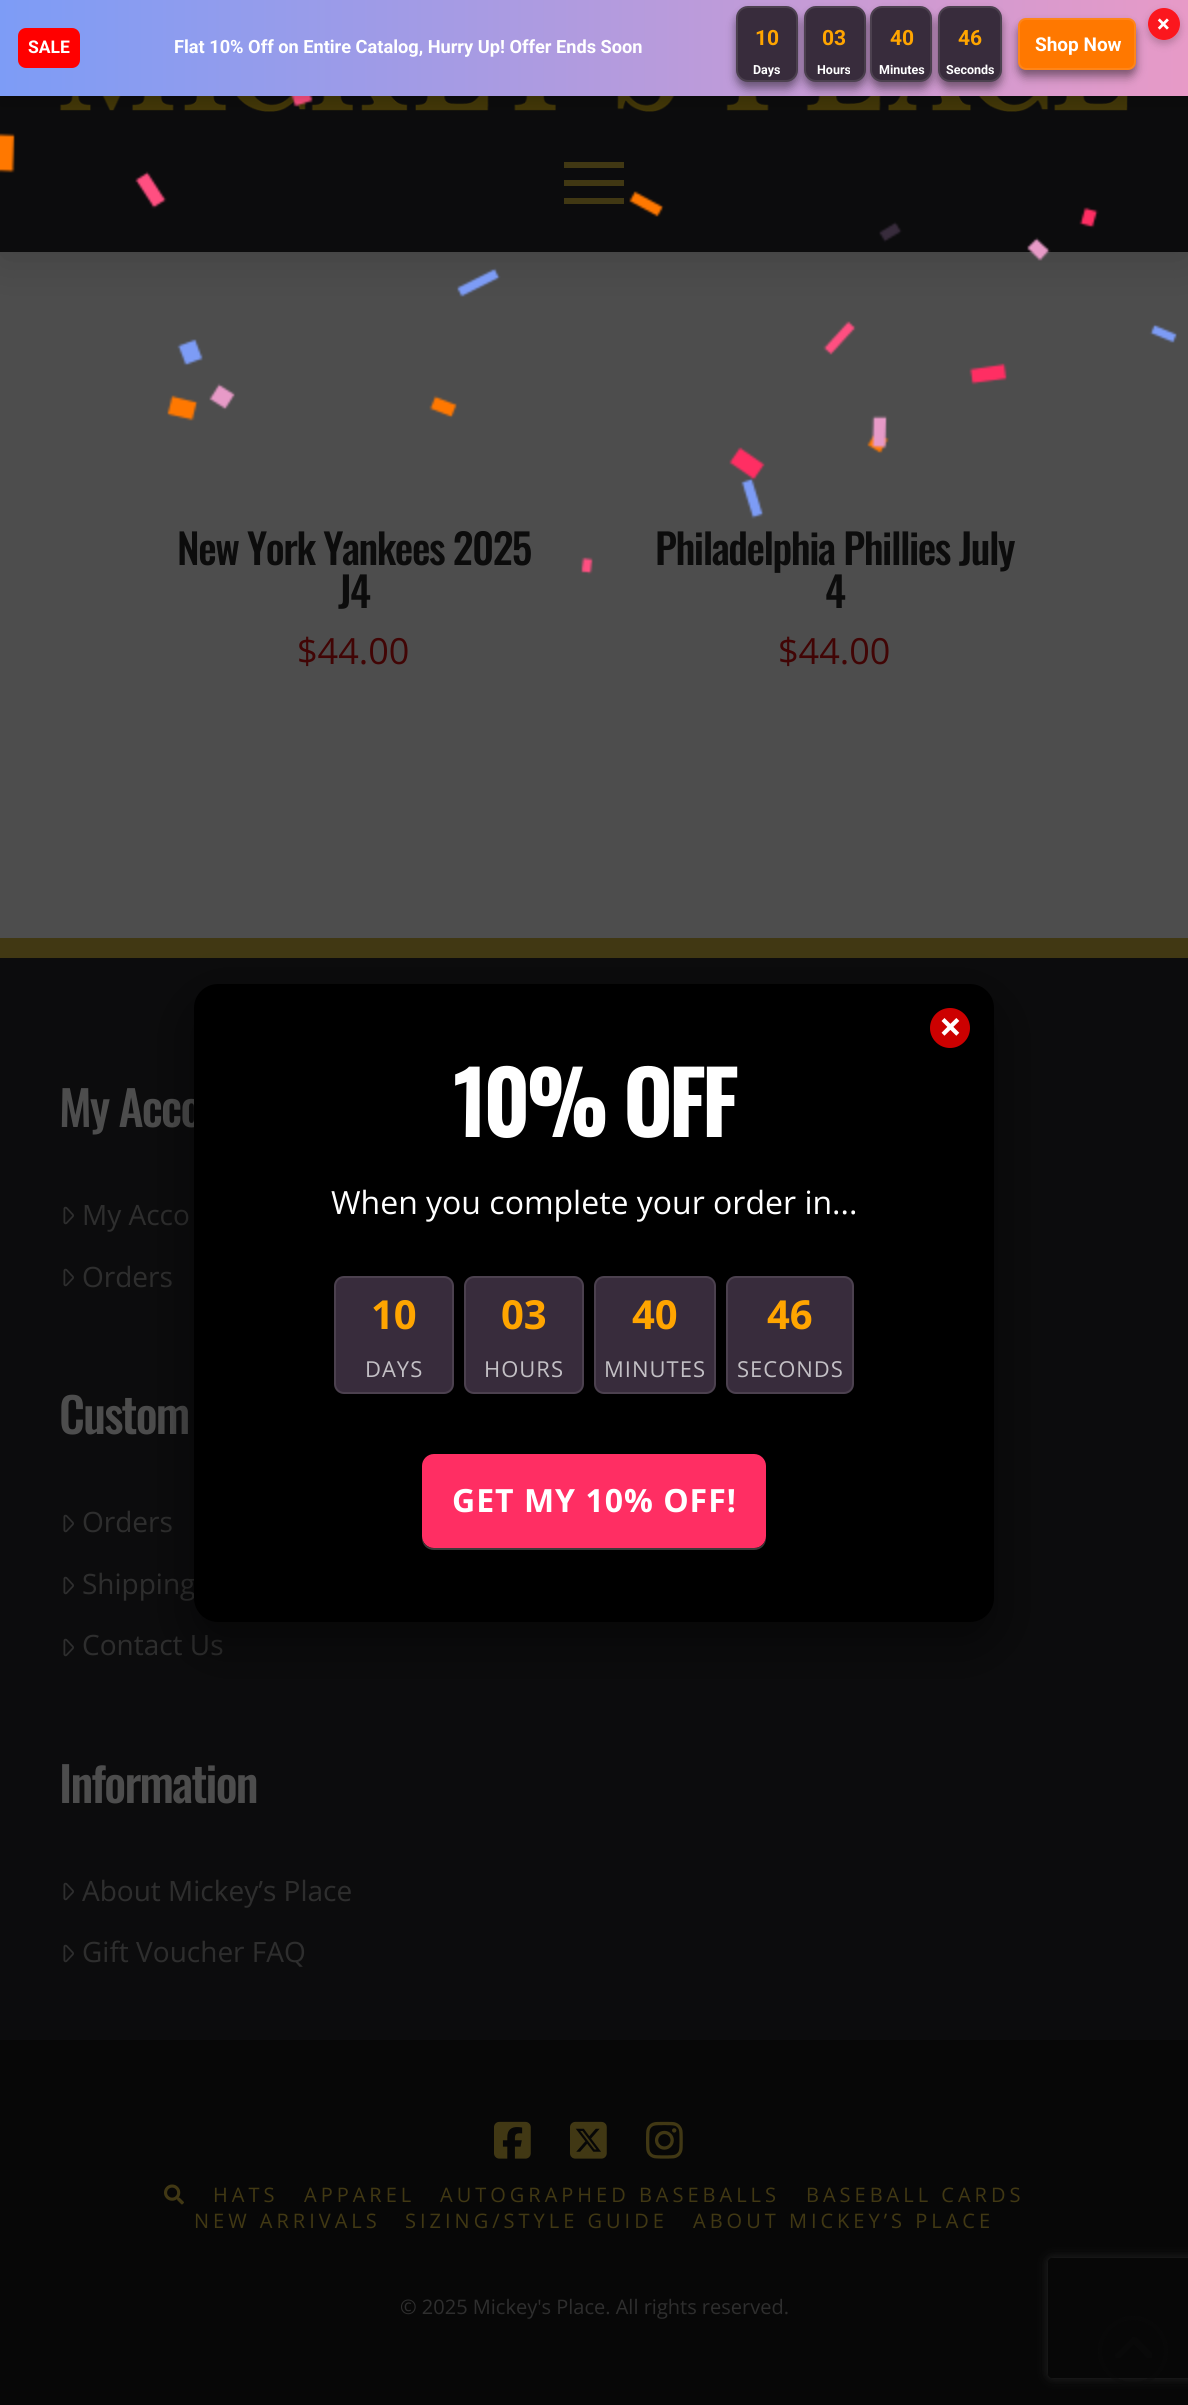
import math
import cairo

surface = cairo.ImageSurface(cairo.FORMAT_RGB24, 1188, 2405)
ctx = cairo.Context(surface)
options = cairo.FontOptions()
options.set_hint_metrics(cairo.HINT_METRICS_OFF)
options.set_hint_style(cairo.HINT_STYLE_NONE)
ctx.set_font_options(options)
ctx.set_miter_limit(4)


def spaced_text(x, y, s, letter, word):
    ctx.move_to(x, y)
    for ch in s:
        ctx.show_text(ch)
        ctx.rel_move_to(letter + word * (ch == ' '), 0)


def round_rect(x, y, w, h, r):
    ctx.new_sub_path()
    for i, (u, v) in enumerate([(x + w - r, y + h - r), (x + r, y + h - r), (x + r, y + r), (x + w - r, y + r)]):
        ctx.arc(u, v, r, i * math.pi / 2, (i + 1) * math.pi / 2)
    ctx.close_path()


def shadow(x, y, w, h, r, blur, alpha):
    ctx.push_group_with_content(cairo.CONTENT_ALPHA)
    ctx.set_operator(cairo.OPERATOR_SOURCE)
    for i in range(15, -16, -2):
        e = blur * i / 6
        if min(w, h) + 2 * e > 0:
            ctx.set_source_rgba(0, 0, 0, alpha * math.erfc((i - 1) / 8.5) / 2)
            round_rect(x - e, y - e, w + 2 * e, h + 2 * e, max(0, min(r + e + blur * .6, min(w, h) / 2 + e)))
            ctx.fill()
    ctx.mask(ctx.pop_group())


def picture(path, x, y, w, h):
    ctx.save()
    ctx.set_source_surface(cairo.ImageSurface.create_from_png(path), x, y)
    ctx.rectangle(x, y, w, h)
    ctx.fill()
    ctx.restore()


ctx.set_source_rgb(0.302, 0.302, 0.302)
ctx.paint()
ctx.set_source_rgb(0, 0, 0)
shadow(0, 6, 1188, 252, 0, 25, 0.15)
ctx.set_source_rgb(0.047, 0.047, 0.051)
ctx.rectangle(0, 96, 1188, 156)
ctx.fill()
picture("img1.png", 59, 96, 1069, 16)
ctx.set_source_rgb(0.255, 0.22, 0.078)
ctx.rectangle(564, 162, 60, 6)
ctx.fill()
ctx.rectangle(564, 180, 60, 6)
ctx.fill()
ctx.rectangle(564, 198, 60, 6)
ctx.fill()
ctx.select_font_face("Oswald Medium")
ctx.set_font_size(41.5)
ctx.set_source_rgb(0.047, 0.047, 0.047)
spaced_text(177, 565, "New York Yankees 2025", -1.45, 0)
spaced_text(338, 608, "J4", -1.45, 0)
spaced_text(655, 565, "Philadelphia Phillies July", -1.45, 0)
spaced_text(825, 608, "4", -1.45, 0)
picture("img8.png", 0, 96, 1177, 479)
ctx.set_source_rgb(0, 0, 0)
shadow(0, 4, 1188, 96, 0, 9, 0.2)
gradient = cairo.LinearGradient(0, 48, 1188, 48)
gradient.add_color_stop_rgba(0, 0.49, 0.612, 0.965, 1)
gradient.add_color_stop_rgba(1, 0.906, 0.604, 0.78, 1)
ctx.set_source(gradient)
ctx.rectangle(0, 0, 1188, 96)
ctx.fill()
ctx.set_source_rgb(0, 0, 0)
shadow(1018, 22, 118, 52, 8, 3.5, 0.2)
shadow(1018, 26, 118, 52, 8, 5, 0.3)
ctx.set_source_rgb(1, 0.471, 0)
round_rect(1018, 18, 118, 52, 8)
ctx.fill()
round_rect(1019, 19, 116, 50, 7)
ctx.set_source_rgba(1, 1, 1, 0.1)
ctx.stroke()
ctx.save()
ctx.set_fill_rule(cairo.FILL_RULE_EVEN_ODD)
ctx.new_path()
ctx.move_to(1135, 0)
ctx.line_to(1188, 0)
ctx.line_to(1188, 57)
ctx.line_to(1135, 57)
ctx.close_path()
ctx.move_to(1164, 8)
ctx.curve_to(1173, 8, 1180, 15, 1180, 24)
ctx.curve_to(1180, 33, 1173, 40, 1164, 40)
ctx.curve_to(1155, 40, 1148, 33, 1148, 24)
ctx.curve_to(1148, 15, 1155, 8, 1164, 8)
ctx.close_path()
ctx.clip()
ctx.set_source_rgb(0, 0, 0)
shadow(1148, 12, 32, 32, 16, 4, 0.2)
ctx.restore()
ctx.set_source_rgba(1, 0, 0, 0.85)
ctx.arc(1164, 24, 16, 0, 2 * math.pi)
ctx.fill()
ctx.select_font_face("Roboto", cairo.FONT_SLANT_NORMAL, cairo.FONT_WEIGHT_BOLD)
ctx.set_font_size(24)
ctx.set_source_rgb(1, 1, 1)
ctx.move_to(1157, 32)
ctx.show_text("×")
ctx.set_source_rgb(1, 0, 0)
round_rect(18, 28, 62, 40, 8)
ctx.fill()
ctx.set_font_size(17.5)
ctx.set_source_rgb(1, 1, 1)
ctx.move_to(28, 53)
ctx.show_text("SALE")
ctx.set_font_size(18.2)
ctx.move_to(174, 53)
ctx.show_text("Flat 10% Off on Entire Catalog, Hurry Up! Offer Ends Soon")
ctx.set_source_rgb(0, 0, 0)
shadow(736, 10, 62, 76, 12, 3.5, 0.2)
shadow(736, 14, 62, 76, 12, 5, 0.3)
ctx.set_source_rgb(0.22, 0.173, 0.235)
round_rect(736, 6, 62, 76, 12)
ctx.fill()
round_rect(737, 7, 60, 74, 11)
ctx.set_source_rgba(1, 1, 1, 0.1)
ctx.stroke()
ctx.set_font_size(21)
ctx.set_source_rgb(1, 0.647, 0)
ctx.move_to(755, 45)
ctx.show_text("10")
ctx.set_font_size(12.5)
ctx.set_source_rgb(1, 1, 1)
ctx.move_to(753, 74)
ctx.show_text("Days")
ctx.set_source_rgb(0, 0, 0)
shadow(804, 10, 62, 76, 12, 3.5, 0.2)
shadow(804, 14, 62, 76, 12, 5, 0.3)
ctx.set_source_rgb(0.22, 0.173, 0.235)
round_rect(804, 6, 62, 76, 12)
ctx.fill()
round_rect(805, 7, 60, 74, 11)
ctx.set_source_rgba(1, 1, 1, 0.1)
ctx.stroke()
ctx.set_font_size(21)
ctx.set_source_rgb(1, 0.647, 0)
ctx.move_to(822, 45)
ctx.show_text("03")
ctx.set_font_size(12.5)
ctx.set_source_rgb(1, 1, 1)
ctx.move_to(817, 74)
ctx.show_text("Hours")
ctx.set_source_rgb(0, 0, 0)
shadow(870, 10, 62, 76, 12, 3.5, 0.2)
shadow(870, 14, 62, 76, 12, 5, 0.3)
ctx.set_source_rgb(0.22, 0.173, 0.235)
round_rect(870, 6, 62, 76, 12)
ctx.fill()
round_rect(871, 7, 60, 74, 11)
ctx.set_source_rgba(1, 1, 1, 0.1)
ctx.stroke()
ctx.set_font_size(21)
ctx.set_source_rgb(1, 0.647, 0)
ctx.move_to(890, 45)
ctx.show_text("40")
ctx.set_font_size(12.5)
ctx.set_source_rgb(1, 1, 1)
ctx.move_to(879, 74)
ctx.show_text("Minutes")
ctx.set_source_rgb(0, 0, 0)
shadow(938, 10, 64, 76, 12, 3.5, 0.2)
shadow(938, 14, 64, 76, 12, 5, 0.3)
ctx.set_source_rgb(0.22, 0.173, 0.235)
round_rect(938, 6, 64, 76, 12)
ctx.fill()
round_rect(939, 7, 62, 74, 11)
ctx.set_source_rgba(1, 1, 1, 0.1)
ctx.stroke()
ctx.set_font_size(21)
ctx.set_source_rgb(1, 0.647, 0)
ctx.move_to(958, 45)
ctx.show_text("46")
ctx.set_font_size(12.5)
ctx.set_source_rgb(1, 1, 1)
ctx.move_to(946, 74)
ctx.show_text("Seconds")
ctx.set_font_size(19)
ctx.move_to(1035, 51)
ctx.show_text("Shop Now")
ctx.select_font_face("Open Sans")
ctx.set_font_size(36)
ctx.set_source_rgb(0.255, 0.02, 0.02)
ctx.move_to(297, 664)
ctx.show_text("$44.00")
ctx.move_to(778, 664)
ctx.show_text("$44.00")
ctx.set_source_rgb(0.047, 0.047, 0.051)
ctx.rectangle(0, 958, 1188, 1082)
ctx.fill()
ctx.set_source_rgb(0.255, 0.22, 0.078)
ctx.rectangle(0, 938, 1188, 20)
ctx.fill()
ctx.select_font_face("Oswald Medium")
ctx.set_font_size(48)
ctx.set_source_rgb(0.302, 0.302, 0.302)
spaced_text(59, 1127, "My Acco", -1.75, 0)
picture("img2.png", 63, 1206, 11, 19)
ctx.select_font_face("Open Sans")
ctx.set_font_size(28)
ctx.set_source_rgb(0.18, 0.18, 0.18)
ctx.move_to(82, 1225)
ctx.show_text("My Acco")
picture("img2.png", 63, 1268, 11, 19)
ctx.move_to(82, 1287)
ctx.show_text("Orders")
ctx.select_font_face("Oswald Medium")
ctx.set_font_size(48)
ctx.set_source_rgb(0.302, 0.302, 0.302)
spaced_text(59, 1434, "Custom", -1.75, 0)
picture("img2.png", 63, 1514, 11, 19)
ctx.select_font_face("Open Sans")
ctx.set_font_size(28)
ctx.set_source_rgb(0.18, 0.18, 0.18)
ctx.move_to(82, 1532)
ctx.show_text("Orders")
picture("img2.png", 63, 1576, 11, 19)
ctx.move_to(82, 1594)
ctx.show_text("Shipping")
picture("img2.png", 63, 1638, 11, 19)
ctx.move_to(82, 1655)
ctx.show_text("Contact Us")
ctx.select_font_face("Oswald Medium")
ctx.set_font_size(48)
ctx.set_source_rgb(0.302, 0.302, 0.302)
spaced_text(59, 1803, "Information", -1.75, 0)
picture("img2.png", 63, 1882, 11, 19)
ctx.select_font_face("Open Sans")
ctx.set_font_size(28)
ctx.set_source_rgb(0.18, 0.18, 0.18)
ctx.move_to(82, 1901)
ctx.show_text("About Mickey’s Place")
picture("img2.png", 63, 1944, 11, 19)
ctx.move_to(82, 1962)
ctx.show_text("Gift Voucher FAQ")
ctx.set_source_rgb(0.031, 0.031, 0.031)
ctx.rectangle(0, 2040, 1188, 365)
ctx.fill()
picture("img3.png", 494, 2121, 37, 38)
picture("img4.png", 570, 2121, 37, 38)
picture("img5.png", 646, 2121, 37, 38)
picture("img6.png", 164, 2184, 20, 21)
ctx.set_font_size(20)
ctx.set_source_rgb(0.255, 0.22, 0.078)
spaced_text(213, 2202, "HATS", 4, 0)
spaced_text(304, 2202, "APPAREL", 4, 0)
spaced_text(440, 2202, "AUTOGRAPHED BASEBALLS", 4, 0)
spaced_text(806, 2202, "BASEBALL CARDS", 4, 0)
spaced_text(194, 2228, "NEW ARRIVALS", 4, 0)
spaced_text(405, 2228, "SIZING/STYLE GUIDE", 4, 0)
spaced_text(693, 2228, "ABOUT MICKEY’S PLACE", 4, 0)
ctx.set_source_rgb(0.18, 0.18, 0.18)
ctx.move_to(400, 2314)
ctx.show_text("© 2025 Mickey's Place. All rights reserved.")
ctx.save()
ctx.set_fill_rule(cairo.FILL_RULE_EVEN_ODD)
ctx.new_path()
ctx.move_to(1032, 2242)
ctx.line_to(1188, 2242)
ctx.line_to(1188, 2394)
ctx.line_to(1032, 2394)
ctx.close_path()
ctx.move_to(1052, 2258)
ctx.line_to(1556, 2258)
ctx.curve_to(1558, 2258, 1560, 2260, 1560, 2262)
ctx.line_to(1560, 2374)
ctx.curve_to(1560, 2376, 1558, 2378, 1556, 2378)
ctx.line_to(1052, 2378)
ctx.curve_to(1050, 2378, 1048, 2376, 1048, 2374)
ctx.line_to(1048, 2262)
ctx.curve_to(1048, 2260, 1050, 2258, 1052, 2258)
ctx.close_path()
ctx.clip()
ctx.set_source_rgb(0.149, 0.149, 0.149)
shadow(1048, 2258, 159, 120, 4, 5, 1)
ctx.restore()
ctx.arc(1133, 2351, 33, 0, 2 * math.pi)
ctx.set_source_rgba(0.047, 0.047, 0.047, 0.38)
ctx.set_line_width(4)
ctx.stroke()
picture("img7.png", 1115, 2337, 37, 21)
ctx.set_source_rgb(0, 0, 0)
shadow(194, 1004, 800, 638, 24, 25, 0.5)
ctx.set_source_rgb(0, 0, 0)
round_rect(194, 984, 800, 638, 24)
ctx.fill()
ctx.set_source_rgb(0.8, 0, 0)
ctx.arc(950, 1028, 20, 0, 2 * math.pi)
ctx.fill()
ctx.select_font_face("Open Sans", cairo.FONT_SLANT_NORMAL, cairo.FONT_WEIGHT_BOLD)
ctx.set_font_size(40)
ctx.set_source_rgb(1, 1, 1)
ctx.move_to(939, 1041)
ctx.show_text("×")
ctx.select_font_face("Oswald", cairo.FONT_SLANT_NORMAL, cairo.FONT_WEIGHT_BOLD)
ctx.set_font_size(84)
spaced_text(453, 1137, "10% OFF", -1.75, 0)
ctx.select_font_face("Open Sans")
ctx.set_font_size(32)
ctx.move_to(331, 1214)
ctx.show_text("When you complete your order in...")
ctx.set_source_rgb(0.22, 0.173, 0.235)
round_rect(334, 1276, 120, 118, 10)
ctx.fill()
round_rect(335, 1277, 118, 116, 9)
ctx.set_source_rgba(1, 1, 1, 0.1)
ctx.set_line_width(2)
ctx.stroke()
ctx.select_font_face("Open Sans", cairo.FONT_SLANT_NORMAL, cairo.FONT_WEIGHT_BOLD)
ctx.set_font_size(40)
ctx.set_source_rgb(1, 0.647, 0)
ctx.move_to(371, 1329)
ctx.show_text("10")
ctx.select_font_face("Open Sans")
ctx.set_font_size(22)
ctx.set_source_rgb(0.765, 0.753, 0.773)
spaced_text(365, 1377, "DAYS", 1, 0)
ctx.set_source_rgb(0.22, 0.173, 0.235)
round_rect(464, 1276, 120, 118, 10)
ctx.fill()
round_rect(465, 1277, 118, 116, 9)
ctx.set_source_rgba(1, 1, 1, 0.1)
ctx.stroke()
ctx.select_font_face("Open Sans", cairo.FONT_SLANT_NORMAL, cairo.FONT_WEIGHT_BOLD)
ctx.set_font_size(40)
ctx.set_source_rgb(1, 0.647, 0)
ctx.move_to(501, 1329)
ctx.show_text("03")
ctx.select_font_face("Open Sans")
ctx.set_font_size(22)
ctx.set_source_rgb(0.765, 0.753, 0.773)
spaced_text(484, 1377, "HOURS", 1, 0)
ctx.set_source_rgb(0.22, 0.173, 0.235)
round_rect(594, 1276, 122, 118, 10)
ctx.fill()
round_rect(595, 1277, 120, 116, 9)
ctx.set_source_rgba(1, 1, 1, 0.1)
ctx.stroke()
ctx.select_font_face("Open Sans", cairo.FONT_SLANT_NORMAL, cairo.FONT_WEIGHT_BOLD)
ctx.set_font_size(40)
ctx.set_source_rgb(1, 0.647, 0)
ctx.move_to(632, 1329)
ctx.show_text("40")
ctx.select_font_face("Open Sans")
ctx.set_font_size(22)
ctx.set_source_rgb(0.765, 0.753, 0.773)
spaced_text(604, 1377, "MINUTES", 1, 0)
ctx.set_source_rgb(0.22, 0.173, 0.235)
round_rect(726, 1276, 128, 118, 10)
ctx.fill()
round_rect(727, 1277, 126, 116, 9)
ctx.set_source_rgba(1, 1, 1, 0.1)
ctx.stroke()
ctx.select_font_face("Open Sans", cairo.FONT_SLANT_NORMAL, cairo.FONT_WEIGHT_BOLD)
ctx.set_font_size(40)
ctx.set_source_rgb(1, 0.647, 0)
ctx.move_to(767, 1329)
ctx.show_text("46")
ctx.select_font_face("Open Sans")
ctx.set_font_size(22)
ctx.set_source_rgb(0.765, 0.753, 0.773)
spaced_text(737, 1377, "SECONDS", 1, 0)
ctx.set_source_rgb(0.235, 0.227, 0.227)
ctx.new_path()
ctx.move_to(422, 1536)
ctx.line_to(422, 1538)
ctx.curve_to(422, 1545, 427, 1550, 434, 1550)
ctx.line_to(754, 1550)
ctx.curve_to(761, 1550, 766, 1545, 766, 1538)
ctx.line_to(766, 1536)
ctx.curve_to(766, 1543, 761, 1548, 754, 1548)
ctx.line_to(434, 1548)
ctx.curve_to(427, 1548, 422, 1543, 422, 1536)
ctx.close_path()
ctx.fill()
ctx.set_source_rgb(1, 0.18, 0.388)
round_rect(422, 1454, 344, 94, 12)
ctx.fill()
ctx.select_font_face("Open Sans", cairo.FONT_SLANT_NORMAL, cairo.FONT_WEIGHT_BOLD)
ctx.set_font_size(32)
ctx.set_source_rgb(1, 1, 1)
spaced_text(452, 1512, "GET MY 10% OFF!", 1, 0)
surface.write_to_png("page.png")
